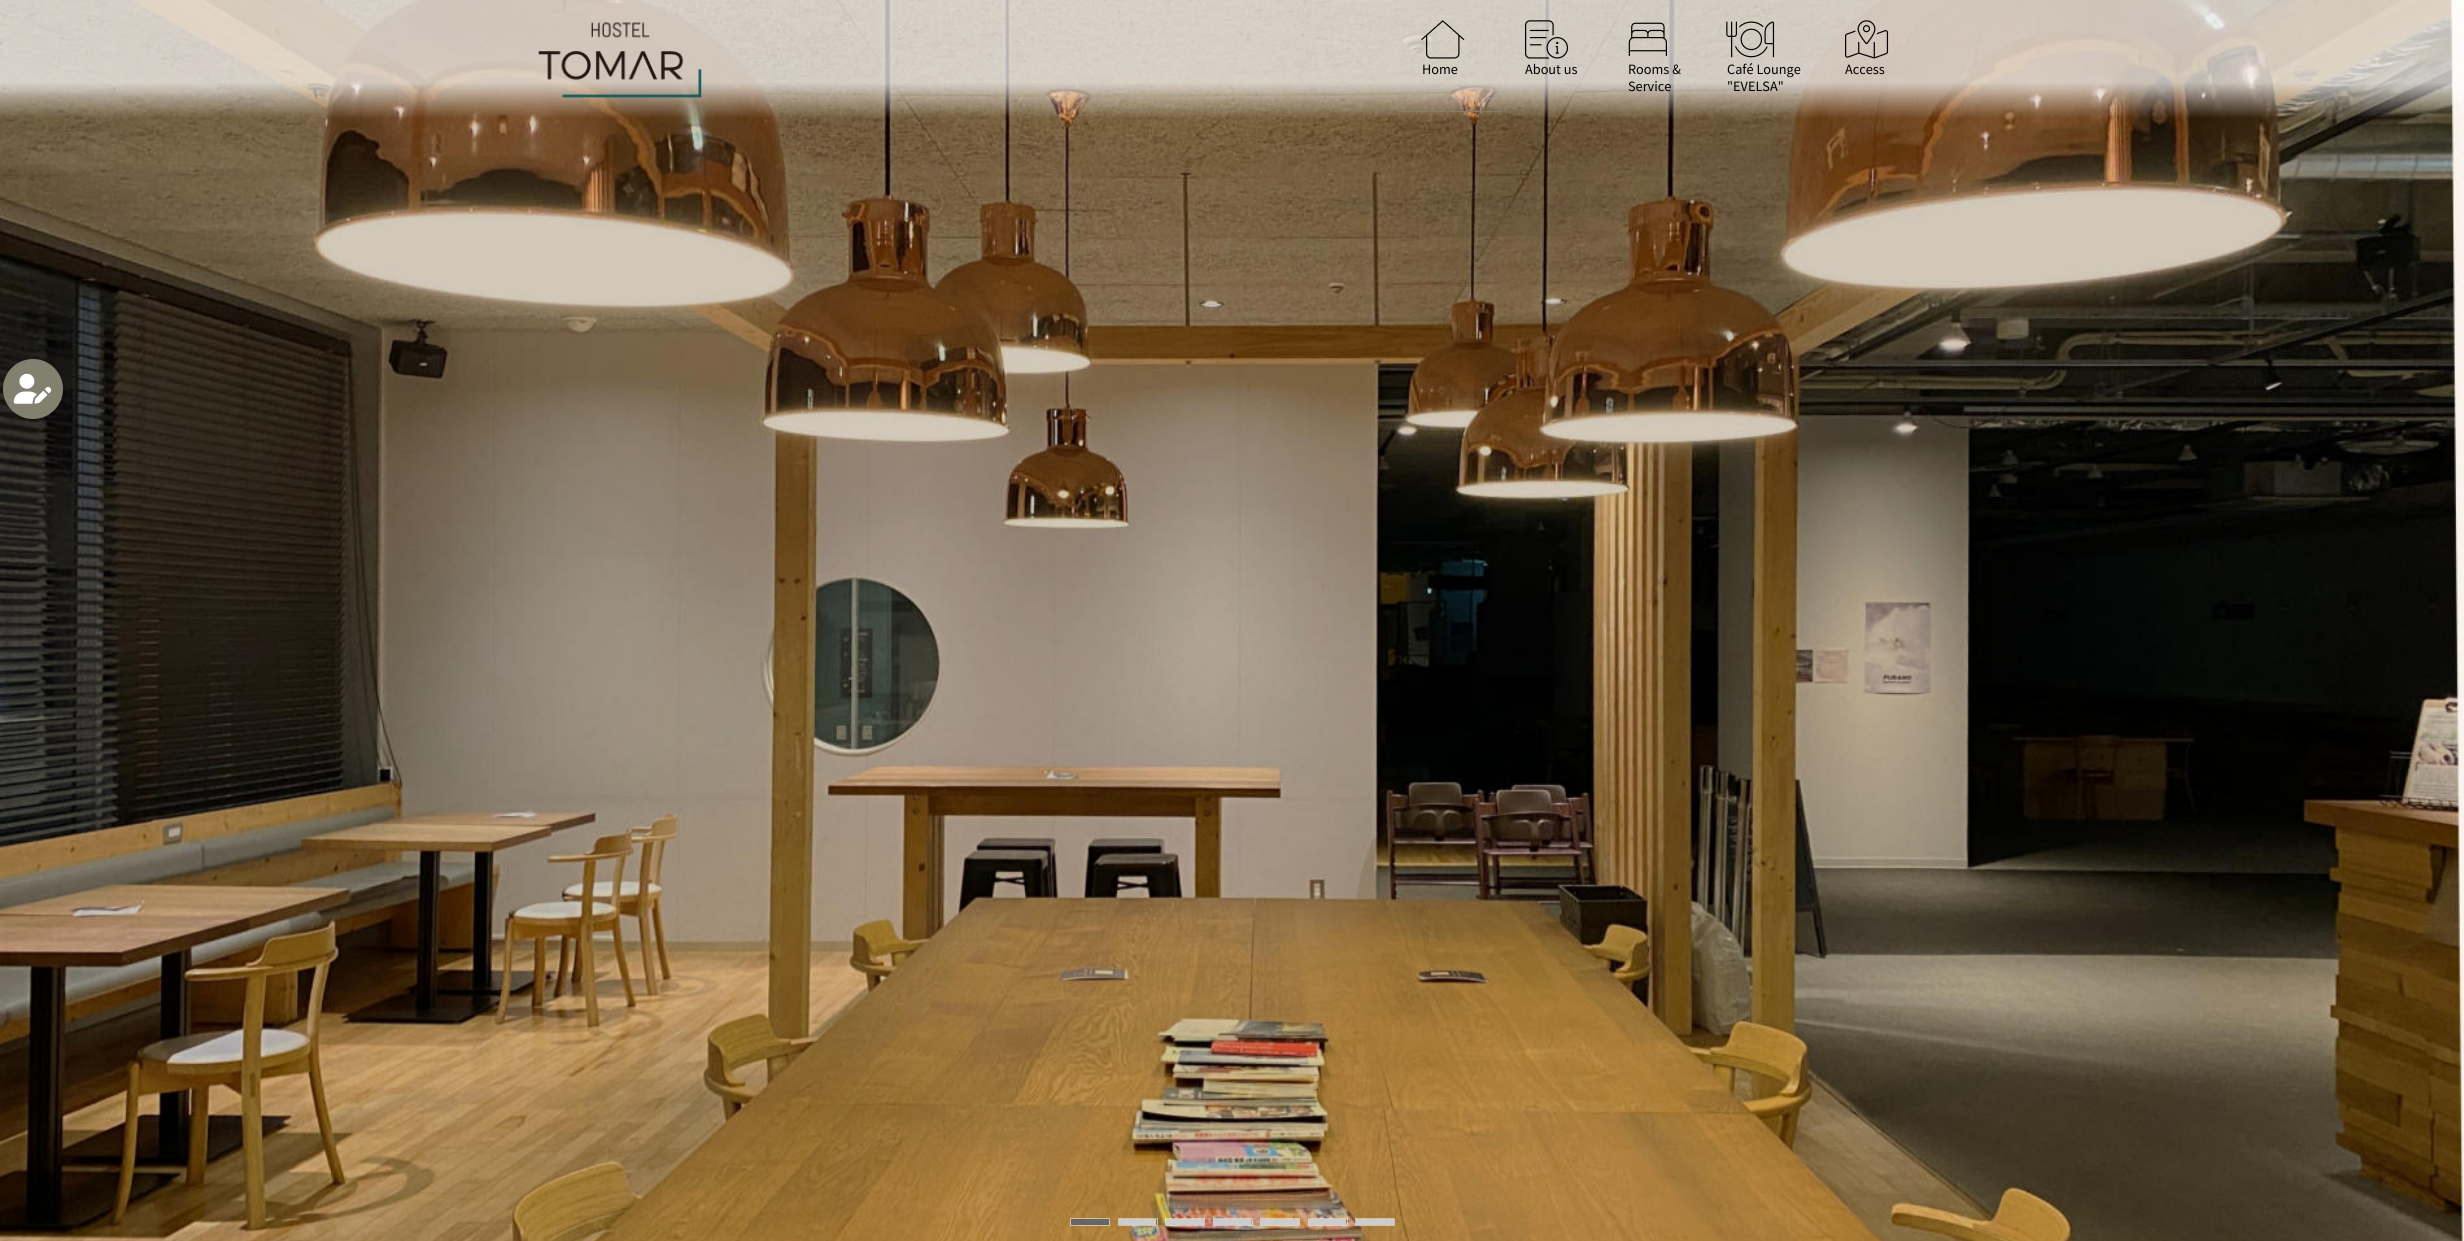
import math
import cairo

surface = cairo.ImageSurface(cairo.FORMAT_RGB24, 2464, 1241)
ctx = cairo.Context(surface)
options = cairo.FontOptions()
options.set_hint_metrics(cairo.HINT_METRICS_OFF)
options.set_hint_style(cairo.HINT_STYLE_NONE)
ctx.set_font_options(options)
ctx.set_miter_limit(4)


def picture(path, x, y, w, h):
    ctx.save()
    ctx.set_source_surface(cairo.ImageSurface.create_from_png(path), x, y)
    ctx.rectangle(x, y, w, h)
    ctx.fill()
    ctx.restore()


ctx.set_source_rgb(1, 1, 1)
ctx.paint()
picture("img1.png", 0, 0, 2464, 1241)
ctx.set_source_rgb(0.4, 0.4, 0.4)
ctx.rectangle(1071, 1219, 38, 6)
ctx.fill()
ctx.rectangle(1070.5, 1218.5, 39, 7)
ctx.set_source_rgba(1, 1, 1, 0.5)
ctx.set_line_width(1)
ctx.stroke()
ctx.set_source_rgb(0.8, 0.8, 0.8)
ctx.rectangle(1119, 1219, 37, 6)
ctx.fill()
ctx.rectangle(1118.5, 1218.5, 39, 7)
ctx.set_source_rgba(1, 1, 1, 0.5)
ctx.stroke()
ctx.set_source_rgb(0.8, 0.8, 0.8)
ctx.rectangle(1166, 1219, 38, 6)
ctx.fill()
ctx.rectangle(1165.5, 1218.5, 39, 7)
ctx.set_source_rgba(1, 1, 1, 0.5)
ctx.stroke()
ctx.set_source_rgb(0.8, 0.8, 0.8)
ctx.rectangle(1214, 1219, 37, 6)
ctx.fill()
ctx.rectangle(1213.5, 1218.5, 39, 7)
ctx.set_source_rgba(1, 1, 1, 0.5)
ctx.stroke()
ctx.set_source_rgb(0.8, 0.8, 0.8)
ctx.rectangle(1261, 1219, 38, 6)
ctx.fill()
ctx.rectangle(1260.5, 1218.5, 39, 7)
ctx.set_source_rgba(1, 1, 1, 0.5)
ctx.stroke()
ctx.set_source_rgb(0.8, 0.8, 0.8)
ctx.rectangle(1309, 1219, 37, 6)
ctx.fill()
ctx.rectangle(1308.5, 1218.5, 39, 7)
ctx.set_source_rgba(1, 1, 1, 0.5)
ctx.stroke()
ctx.set_source_rgb(0.8, 0.8, 0.8)
ctx.rectangle(1356, 1219, 38, 6)
ctx.fill()
ctx.rectangle(1355.5, 1218.5, 39, 7)
ctx.set_source_rgba(1, 1, 1, 0.5)
ctx.stroke()
picture("img2.png", 538, 22, 164, 76)
picture("img3.png", 1421, 20, 44, 39)
ctx.select_font_face("Noto Sans JP")
ctx.set_font_size(12.75)
ctx.set_source_rgb(0, 0, 0)
ctx.move_to(1422, 74)
ctx.show_text("Home")
ctx.set_source_rgb(0.51, 0.502, 0.435)
ctx.rectangle(1399, 111, 104, 1)
ctx.fill()
picture("img4.png", 1525, 20, 43, 39)
ctx.set_source_rgb(0, 0, 0)
ctx.move_to(1525, 74)
ctx.show_text("About us")
picture("img5.png", 1628, 22, 39, 35)
ctx.move_to(1628, 74)
ctx.show_text("Rooms &")
ctx.move_to(1628, 91)
ctx.show_text("Service")
picture("img6.png", 1726, 21, 49, 37)
ctx.move_to(1727, 74)
ctx.show_text("Café Lounge")
ctx.move_to(1727, 91)
ctx.show_text("\"EVELSA\"")
picture("img7.png", 1845, 20, 44, 39)
ctx.move_to(1845, 74)
ctx.show_text("Access")
ctx.set_source_rgb(0.51, 0.502, 0.435)
ctx.new_path()
ctx.arc(33, 389, 30, 0, 2 * math.pi)
ctx.fill()
picture("img8.png", 13, 373, 39, 31)
surface.write_to_png("page.png")
